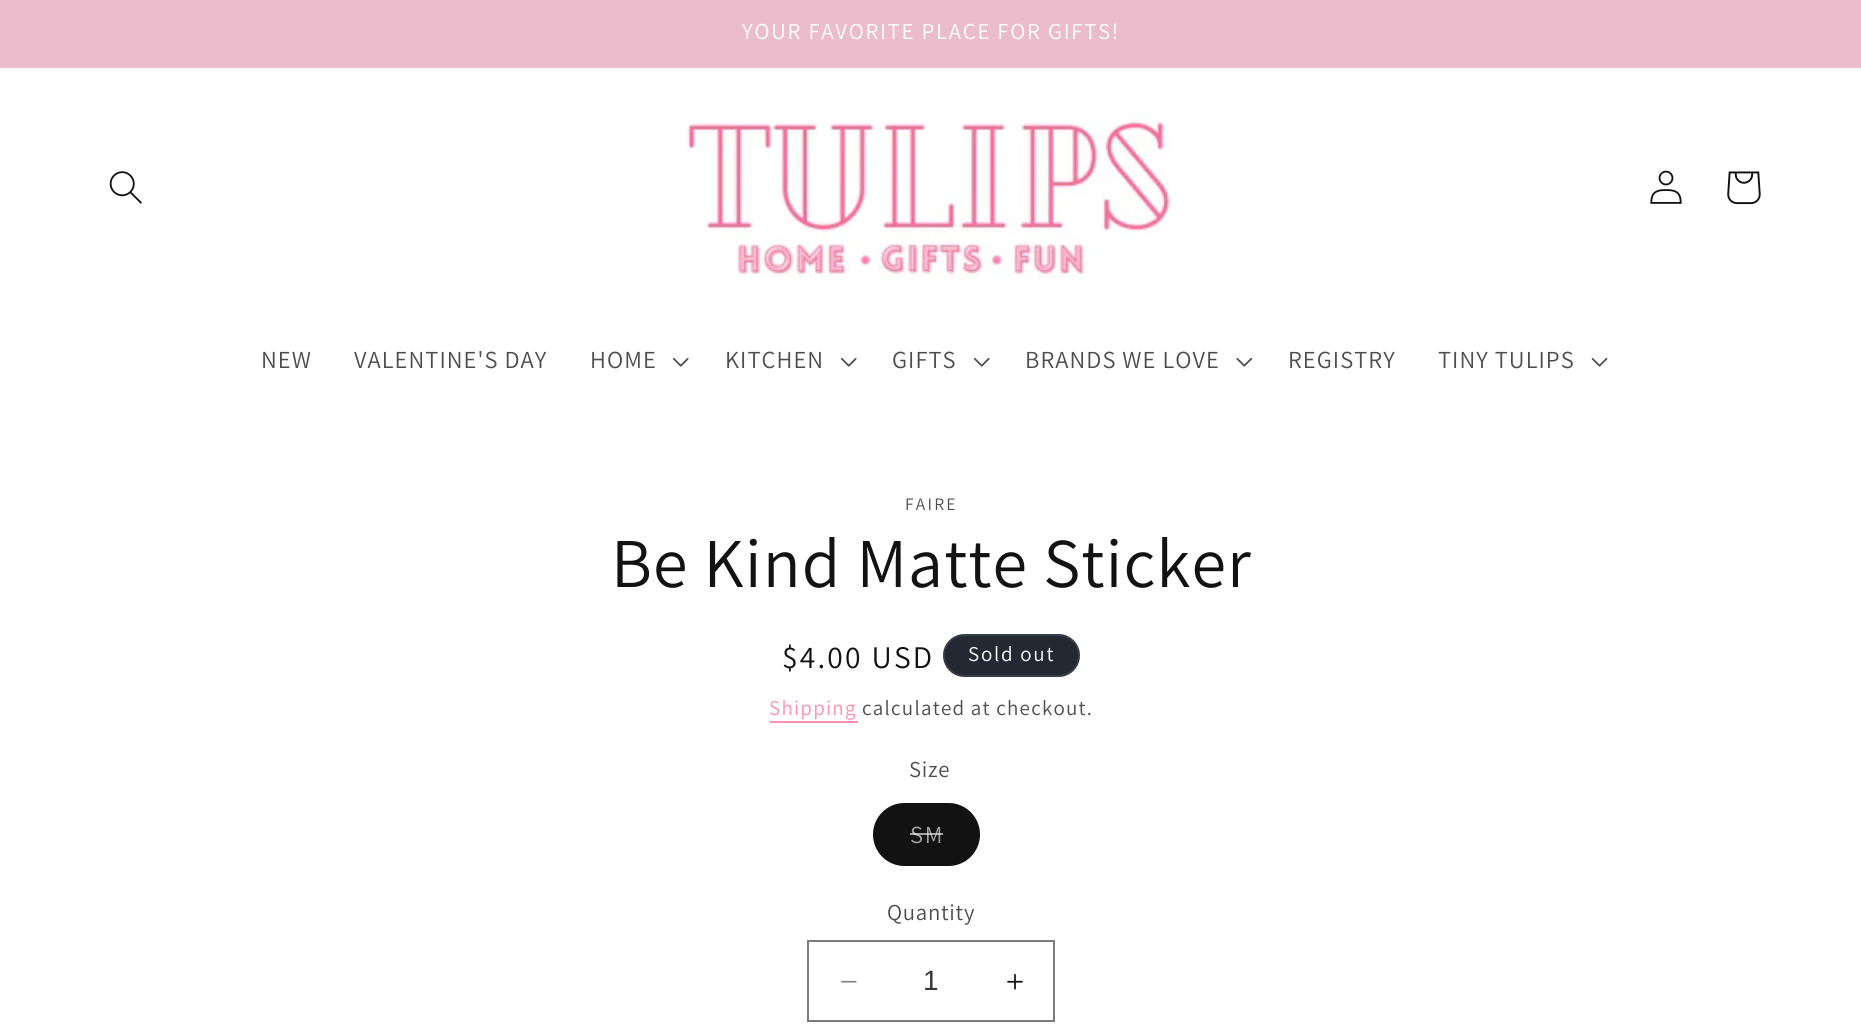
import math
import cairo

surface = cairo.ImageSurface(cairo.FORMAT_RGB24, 1861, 1034)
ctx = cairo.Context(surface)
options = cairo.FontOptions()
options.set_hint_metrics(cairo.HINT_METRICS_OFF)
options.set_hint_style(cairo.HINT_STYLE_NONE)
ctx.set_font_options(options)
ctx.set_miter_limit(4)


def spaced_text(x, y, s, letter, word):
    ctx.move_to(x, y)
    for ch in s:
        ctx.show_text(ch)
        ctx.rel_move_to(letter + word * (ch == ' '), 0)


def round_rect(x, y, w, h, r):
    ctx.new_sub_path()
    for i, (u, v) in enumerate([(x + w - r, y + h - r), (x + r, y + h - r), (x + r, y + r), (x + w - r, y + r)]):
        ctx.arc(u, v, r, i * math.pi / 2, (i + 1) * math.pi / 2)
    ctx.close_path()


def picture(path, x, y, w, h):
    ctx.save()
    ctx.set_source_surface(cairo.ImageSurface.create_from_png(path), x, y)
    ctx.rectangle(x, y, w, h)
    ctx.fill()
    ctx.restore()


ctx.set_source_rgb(1, 1, 1)
ctx.paint()
ctx.set_source_rgb(0.918, 0.737, 0.796)
ctx.rectangle(0, 0, 1861, 67)
ctx.fill()
ctx.set_source_rgb(0.925, 0.757, 0.812)
ctx.rectangle(0, 67, 1861, 1)
ctx.fill()
ctx.select_font_face("Assistant")
ctx.set_font_size(22.75)
ctx.set_source_rgb(1, 1, 1)
spaced_text(742, 39, "YOUR FAVORITE PLACE FOR GIFTS!", 1.75, 0)
picture("img1.png", 109, 171, 33, 33)
picture("img2.png", 687, 110, 485, 168)
picture("img3.png", 1650, 170, 32, 34)
picture("img4.png", 1727, 171, 34, 34)
ctx.set_font_size(24.5)
ctx.set_source_rgb(0.302, 0.302, 0.302)
spaced_text(261, 368, "NEW", 1.05, 0)
spaced_text(354, 368, "VALENTINE'S DAY", 1.05, 0)
spaced_text(590, 368, "HOME", 1.05, 0)
picture("img5.png", 672, 357, 17, 10)
spaced_text(725, 368, "KITCHEN", 1.05, 0)
picture("img5.png", 840, 357, 17, 10)
spaced_text(892, 368, "GIFTS", 1.05, 0)
picture("img5.png", 973, 357, 17, 10)
spaced_text(1025, 368, "BRANDS WE LOVE", 1.05, 0)
picture("img6.png", 1236, 357, 17, 10)
spaced_text(1288, 368, "REGISTRY", 1.05, 0)
spaced_text(1438, 368, "TINY TULIPS", 1.05, 0)
picture("img7.png", 1591, 357, 17, 10)
ctx.set_font_size(17.5)
spaced_text(905, 510, "FAIRE", 2.25, 0)
ctx.set_font_size(70)
ctx.set_source_rgb(0.071, 0.071, 0.071)
spaced_text(611, 587, "Be Kind Matte Sticker", 1.05, 0)
ctx.set_font_size(31.5)
spaced_text(782, 668, "$4.00 USD", 2.25, 0)
ctx.set_source_rgb(0.141, 0.157, 0.2)
round_rect(943, 634, 137, 43, 21.5)
ctx.fill()
round_rect(944, 635, 135, 41, 20.5)
ctx.set_source_rgba(1, 1, 1, 0.1)
ctx.stroke()
ctx.set_font_size(21)
ctx.set_source_rgb(1, 1, 1)
spaced_text(968, 661, "Sold out", 1.75, 0)
ctx.set_source_rgb(1, 0.565, 0.686)
spaced_text(769, 715, "Shipping", 1.25, 0)
ctx.rectangle(770, 721, 88, 2)
ctx.fill()
ctx.set_source_rgb(0.302, 0.302, 0.302)
spaced_text(862, 715, "calculated at checkout.", 1.25, 0)
ctx.set_font_size(22.75)
spaced_text(909, 777, "Size", 0.75, 0)
ctx.set_source_rgb(0.071, 0.071, 0.071)
round_rect(873, 803, 107, 63, 31.5)
ctx.fill()
round_rect(874, 804, 105, 61, 30.5)
ctx.set_source_rgba(0.071, 0.071, 0.071, 0.1)
ctx.stroke()
ctx.set_font_size(24.5)
ctx.set_source_rgb(0.627, 0.627, 0.627)
spaced_text(910, 843, "SM", 1.75, 0)
ctx.set_source_rgba(1, 1, 1, 0.6)
ctx.rectangle(910, 833, 33, 2)
ctx.fill()
ctx.set_font_size(22.75)
ctx.set_source_rgb(0.302, 0.302, 0.302)
spaced_text(887, 920, "Quantity", 0.75, 0)
picture("img8.png", 841, 980, 16, 3)
picture("img9.png", 1007, 973, 16, 17)
ctx.rectangle(808, 941, 246, 80)
ctx.set_source_rgb(0.49, 0.49, 0.49)
ctx.stroke()
ctx.select_font_face("Liberation Sans")
ctx.set_font_size(28)
ctx.set_source_rgb(0.212, 0.212, 0.212)
ctx.move_to(923, 990)
ctx.show_text("1")
surface.write_to_png("page.png")
